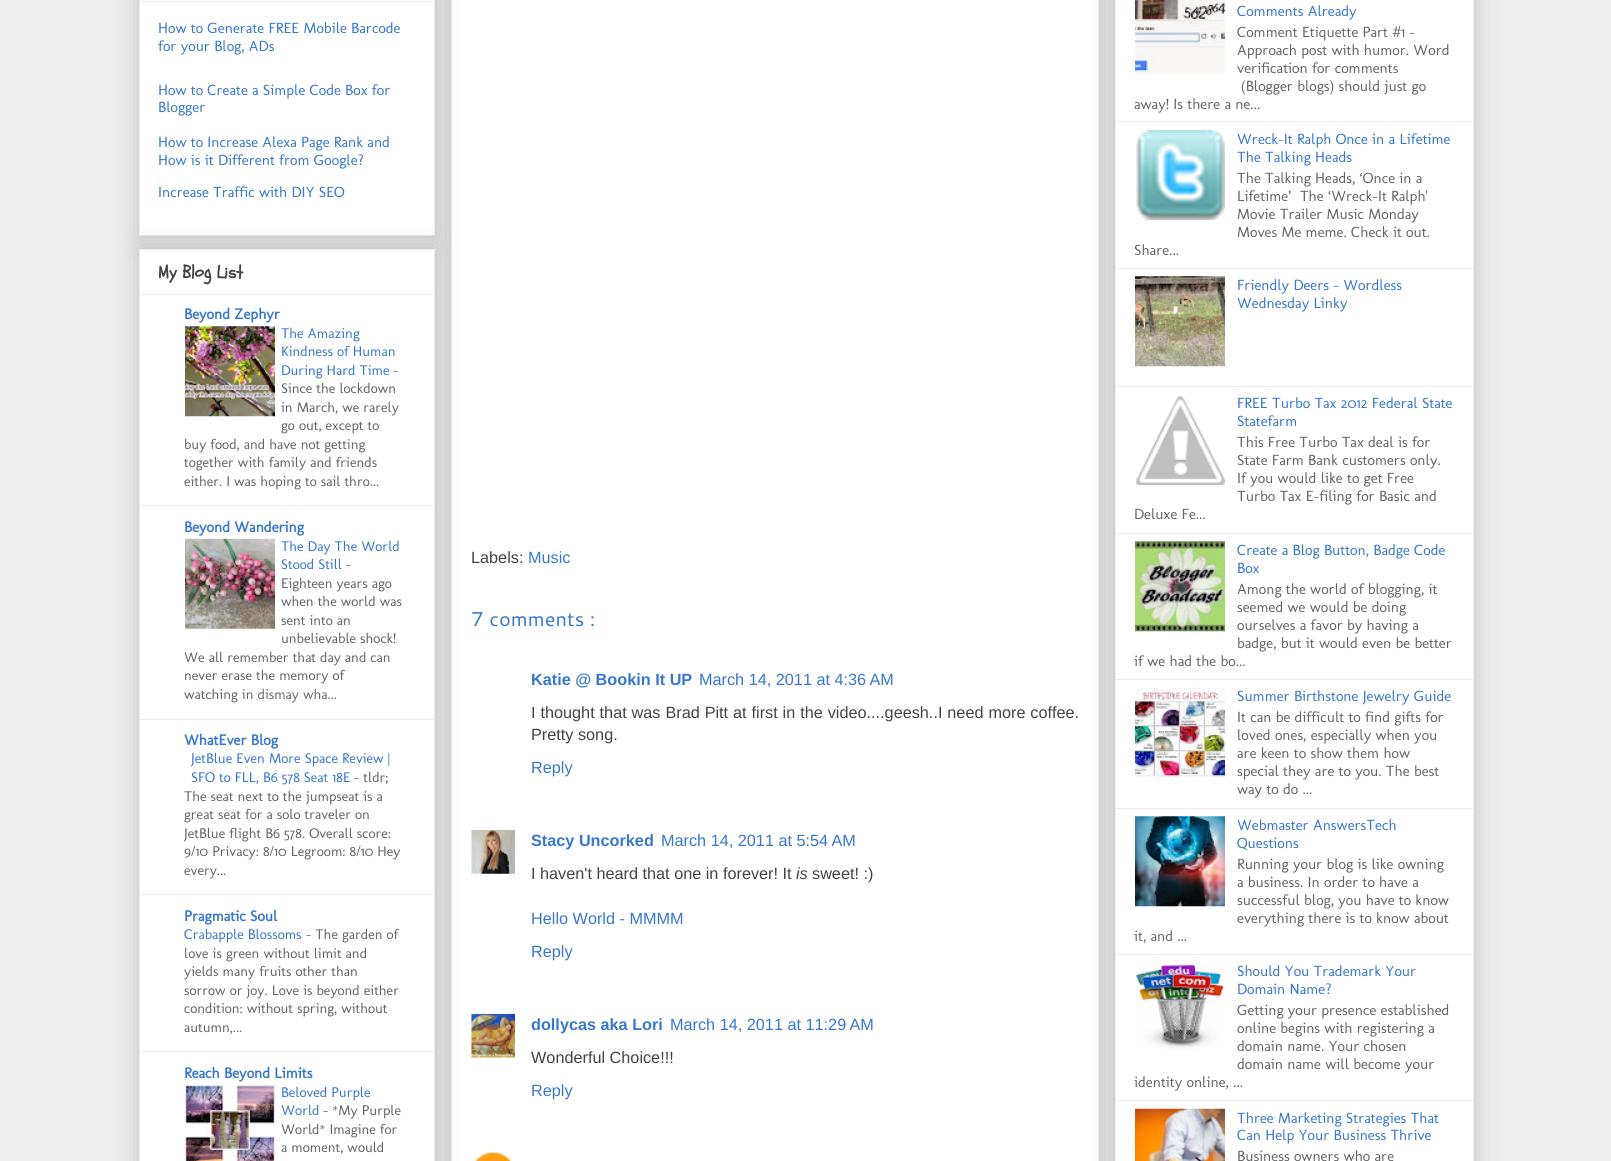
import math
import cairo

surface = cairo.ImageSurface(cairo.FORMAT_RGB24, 1611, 1161)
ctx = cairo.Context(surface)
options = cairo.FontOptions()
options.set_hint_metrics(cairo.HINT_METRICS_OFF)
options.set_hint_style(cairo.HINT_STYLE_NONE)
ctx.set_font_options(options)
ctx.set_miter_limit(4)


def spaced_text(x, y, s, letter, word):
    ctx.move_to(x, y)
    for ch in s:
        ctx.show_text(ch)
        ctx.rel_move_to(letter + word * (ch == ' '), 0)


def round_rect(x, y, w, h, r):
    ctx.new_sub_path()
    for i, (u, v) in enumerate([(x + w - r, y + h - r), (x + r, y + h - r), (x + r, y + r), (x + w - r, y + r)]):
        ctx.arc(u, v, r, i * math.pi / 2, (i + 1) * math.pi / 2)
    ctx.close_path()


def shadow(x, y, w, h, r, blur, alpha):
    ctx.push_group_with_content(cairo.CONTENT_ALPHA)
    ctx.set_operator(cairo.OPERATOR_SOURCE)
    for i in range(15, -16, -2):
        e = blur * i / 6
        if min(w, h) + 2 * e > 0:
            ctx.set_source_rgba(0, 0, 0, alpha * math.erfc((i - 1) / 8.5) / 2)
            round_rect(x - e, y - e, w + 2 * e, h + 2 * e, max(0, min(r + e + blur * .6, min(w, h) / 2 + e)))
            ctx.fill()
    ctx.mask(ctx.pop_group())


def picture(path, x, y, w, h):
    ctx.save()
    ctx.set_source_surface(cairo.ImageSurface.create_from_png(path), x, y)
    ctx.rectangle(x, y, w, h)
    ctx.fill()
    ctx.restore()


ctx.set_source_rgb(0.933, 0.933, 0.933)
ctx.paint()
ctx.set_source_rgb(0, 0, 0)
shadow(451, -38, 648, 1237, 0, 12.5, 0.2)
ctx.set_source_rgb(1, 1, 1)
ctx.rectangle(451.5, -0.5, 647, 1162)
ctx.fill_preserve()
ctx.set_source_rgb(0.933, 0.933, 0.933)
ctx.set_line_width(1)
ctx.stroke()
ctx.set_source_rgb(0, 0, 0)
shadow(139, -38, 296, 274, 0, 12.5, 0.2)
ctx.set_source_rgb(1, 1, 1)
ctx.rectangle(139.5, -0.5, 295, 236)
ctx.fill_preserve()
ctx.set_source_rgb(0.933, 0.933, 0.933)
ctx.stroke()
ctx.rectangle(140, 1, 294, 1)
ctx.fill()
ctx.select_font_face("Molengo")
ctx.set_font_size(15)
ctx.set_source_rgb(0.216, 0.471, 0.804)
ctx.move_to(158, 33)
ctx.show_text("How to Generate FREE Mobile Barcode")
ctx.move_to(158, 51)
ctx.show_text("for your Blog, ADs")
ctx.move_to(158, 95)
ctx.show_text("How to Create a Simple Code Box for")
ctx.move_to(158, 112)
ctx.show_text("Blogger")
ctx.move_to(158, 147)
ctx.show_text("How to Increase Alexa Page Rank and")
ctx.move_to(158, 165)
ctx.show_text("How is it Different from Google?")
ctx.move_to(158, 197)
ctx.show_text("Increase Traffic with DIY SEO")
picture("img4.png", 471, 830, 44, 44)
picture("img5.png", 471, 1013, 44, 45)
ctx.set_source_rgb(0, 0, 0)
shadow(139, 249, 296, 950, 0, 12.5, 0.2)
ctx.set_source_rgb(1, 1, 1)
ctx.rectangle(139.5, 249.5, 295, 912)
ctx.fill_preserve()
ctx.set_source_rgb(0.933, 0.933, 0.933)
ctx.stroke()
ctx.select_font_face("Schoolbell", cairo.FONT_SLANT_NORMAL, cairo.FONT_WEIGHT_BOLD)
ctx.set_font_size(17.5)
ctx.set_source_rgb(0.267, 0.267, 0.267)
ctx.move_to(158, 278)
ctx.show_text("My Blog List")
ctx.set_source_rgb(0.933, 0.933, 0.933)
ctx.rectangle(140, 294, 294, 1)
ctx.fill()
ctx.select_font_face("Molengo", cairo.FONT_SLANT_NORMAL, cairo.FONT_WEIGHT_BOLD)
ctx.set_font_size(15)
ctx.set_source_rgb(0.216, 0.471, 0.804)
ctx.move_to(184, 319)
ctx.show_text("Beyond Zephyr")
picture("img1.png", 185, 326, 90, 91)
ctx.select_font_face("Molengo")
ctx.set_font_size(14.25)
ctx.move_to(281, 338)
ctx.show_text("The Amazing")
ctx.move_to(281, 356)
ctx.show_text("Kindness of Human")
ctx.move_to(281, 375)
ctx.show_text("During Hard Time")
ctx.set_source_rgb(0.4, 0.4, 0.4)
ctx.move_to(393, 375)
ctx.show_text("-")
ctx.move_to(281, 393)
ctx.show_text("Since the lockdown")
ctx.move_to(281, 412)
ctx.show_text("in March, we rarely")
ctx.move_to(281, 430)
ctx.show_text("go out, except to")
ctx.move_to(184, 449)
ctx.show_text("buy food, and have not getting")
ctx.move_to(184, 467)
ctx.show_text("together with family and friends")
ctx.move_to(184, 486)
ctx.show_text("either. I was hoping to sail thro...")
ctx.set_source_rgb(0.933, 0.933, 0.933)
ctx.rectangle(140, 505, 294, 1)
ctx.fill()
ctx.select_font_face("Molengo", cairo.FONT_SLANT_NORMAL, cairo.FONT_WEIGHT_BOLD)
ctx.set_font_size(15)
ctx.set_source_rgb(0.216, 0.471, 0.804)
ctx.move_to(184, 532)
ctx.show_text("Beyond Wandering")
picture("img2.png", 185, 538, 90, 91)
ctx.select_font_face("Molengo")
ctx.set_font_size(14.25)
ctx.move_to(281, 551)
ctx.show_text("The Day The World")
ctx.move_to(281, 569)
ctx.show_text("Stood Still")
ctx.set_source_rgb(0.4, 0.4, 0.4)
ctx.move_to(346, 569)
ctx.show_text("-")
ctx.move_to(281, 588)
ctx.show_text("Eighteen years ago")
ctx.move_to(281, 606)
ctx.show_text("when the world was")
ctx.move_to(281, 625)
ctx.show_text("sent into an")
ctx.move_to(281, 643)
ctx.show_text("unbelievable shock!")
ctx.move_to(184, 662)
ctx.show_text("We all remember that day and can")
ctx.move_to(184, 680)
ctx.show_text("never erase the memory of")
ctx.move_to(184, 699)
ctx.show_text("watching in dismay wha...")
ctx.set_source_rgb(0.933, 0.933, 0.933)
ctx.rectangle(140, 719, 294, 1)
ctx.fill()
ctx.select_font_face("Molengo", cairo.FONT_SLANT_NORMAL, cairo.FONT_WEIGHT_BOLD)
ctx.set_font_size(15)
ctx.set_source_rgb(0.216, 0.471, 0.804)
ctx.move_to(184, 745)
ctx.show_text("WhatEver Blog")
ctx.select_font_face("Molengo")
ctx.set_font_size(14.25)
ctx.move_to(191, 763)
ctx.show_text("JetBlue Even More Space Review |")
ctx.move_to(191, 782)
ctx.show_text("SFO to FLL, B6 578 Seat 18E")
ctx.set_source_rgb(0.4, 0.4, 0.4)
ctx.move_to(354, 782)
ctx.show_text("- tldr;")
ctx.move_to(184, 801)
ctx.show_text("The seat next to the jumpseat is a")
ctx.move_to(184, 819)
ctx.show_text("great seat for a solo traveler on")
ctx.move_to(184, 838)
ctx.show_text("JetBlue flight B6 578. Overall score:")
ctx.move_to(184, 856)
ctx.show_text("9/10 Privacy: 8/10 Legroom: 8/10 Hey")
ctx.move_to(184, 875)
ctx.show_text("every...")
ctx.set_source_rgb(0.933, 0.933, 0.933)
ctx.rectangle(140, 894, 294, 1)
ctx.fill()
ctx.select_font_face("Molengo", cairo.FONT_SLANT_NORMAL, cairo.FONT_WEIGHT_BOLD)
ctx.set_font_size(15)
ctx.set_source_rgb(0.216, 0.471, 0.804)
ctx.move_to(184, 921)
ctx.show_text("Pragmatic Soul")
ctx.select_font_face("Molengo")
ctx.set_font_size(14.25)
ctx.move_to(184, 939)
ctx.show_text("Crabapple Blossoms")
ctx.set_source_rgb(0.4, 0.4, 0.4)
ctx.move_to(306, 939)
ctx.show_text("- The garden of")
ctx.move_to(184, 958)
ctx.show_text("love is green without limit and")
ctx.move_to(184, 976)
ctx.show_text("yields many fruits other than")
ctx.move_to(184, 995)
ctx.show_text("sorrow or joy. Love is beyond either")
ctx.move_to(184, 1013)
ctx.show_text("condition: without spring, without")
ctx.move_to(184, 1032)
ctx.show_text("autumn,...")
ctx.set_source_rgb(0.933, 0.933, 0.933)
ctx.rectangle(140, 1051, 294, 1)
ctx.fill()
ctx.select_font_face("Molengo", cairo.FONT_SLANT_NORMAL, cairo.FONT_WEIGHT_BOLD)
ctx.set_font_size(15)
ctx.set_source_rgb(0.216, 0.471, 0.804)
ctx.move_to(184, 1078)
ctx.show_text("Reach Beyond Limits")
picture("img3.png", 185, 1085, 90, 76)
ctx.select_font_face("Molengo")
ctx.set_font_size(14.25)
ctx.move_to(281, 1097)
ctx.show_text("Beloved Purple")
ctx.move_to(281, 1115)
ctx.show_text("World")
ctx.set_source_rgb(0.4, 0.4, 0.4)
ctx.move_to(323, 1115)
ctx.show_text("- *My Purple")
ctx.move_to(281, 1134)
ctx.show_text("World* Imagine for")
ctx.move_to(281, 1152)
ctx.show_text("a moment, would")
ctx.select_font_face("Liberation Sans")
ctx.set_font_size(16.25)
ctx.set_source_rgb(0.267, 0.267, 0.267)
ctx.move_to(471, 563)
ctx.show_text("Labels:")
ctx.set_source_rgb(0.216, 0.471, 0.804)
ctx.move_to(528, 563)
ctx.show_text("Music")
ctx.select_font_face("Cantarell")
ctx.set_font_size(20)
ctx.move_to(471, 626)
ctx.show_text("7 comments :")
ctx.select_font_face("Liberation Sans", cairo.FONT_SLANT_NORMAL, cairo.FONT_WEIGHT_BOLD)
ctx.set_font_size(16.25)
ctx.move_to(531, 685)
ctx.show_text("Katie @ Bookin It UP")
ctx.select_font_face("Liberation Sans")
ctx.move_to(699, 685)
ctx.show_text("March 14, 2011 at 4:36 AM")
ctx.set_source_rgb(0.267, 0.267, 0.267)
spaced_text(531, 718, "I thought that was Brad Pitt at first in the video....geesh..I need more coffee.", 0, 0.4)
ctx.move_to(531, 740)
ctx.show_text("Pretty song.")
ctx.set_source_rgb(0.216, 0.471, 0.804)
ctx.move_to(531, 773)
ctx.show_text("Reply")
ctx.select_font_face("Liberation Sans", cairo.FONT_SLANT_NORMAL, cairo.FONT_WEIGHT_BOLD)
ctx.move_to(531, 846)
ctx.show_text("Stacy Uncorked")
ctx.select_font_face("Liberation Sans")
ctx.move_to(661, 846)
ctx.show_text("March 14, 2011 at 5:54 AM")
ctx.set_source_rgb(0.267, 0.267, 0.267)
ctx.move_to(531, 879)
ctx.show_text("I haven't heard that one in forever! It")
ctx.select_font_face("Liberation Sans", cairo.FONT_SLANT_ITALIC)
ctx.move_to(796, 879)
ctx.show_text("is")
ctx.select_font_face("Liberation Sans")
ctx.move_to(812, 879)
ctx.show_text("sweet! :)")
ctx.set_source_rgb(0.216, 0.471, 0.804)
ctx.move_to(531, 924)
ctx.show_text("Hello World - MMMM")
ctx.move_to(531, 957)
ctx.show_text("Reply")
ctx.select_font_face("Liberation Sans", cairo.FONT_SLANT_NORMAL, cairo.FONT_WEIGHT_BOLD)
ctx.move_to(531, 1030)
ctx.show_text("dollycas aka Lori")
ctx.select_font_face("Liberation Sans")
ctx.move_to(670, 1030)
ctx.show_text("March 14, 2011 at 11:29 AM")
ctx.set_source_rgb(0.267, 0.267, 0.267)
ctx.move_to(531, 1063)
ctx.show_text("Wonderful Choice!!!")
ctx.set_source_rgb(0.216, 0.471, 0.804)
ctx.move_to(531, 1096)
ctx.show_text("Reply")
picture("img6.png", 475, 1152, 37, 9)
ctx.set_source_rgb(0, 0, 0)
shadow(1115, -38, 359, 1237, 0, 12.5, 0.2)
ctx.set_source_rgb(1, 1, 1)
ctx.rectangle(1115.5, -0.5, 358, 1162)
ctx.fill_preserve()
ctx.set_source_rgb(0.933, 0.933, 0.933)
ctx.stroke()
picture("img7.png", 1135, 0, 90, 74)
ctx.select_font_face("Molengo")
ctx.set_font_size(15)
ctx.set_source_rgb(0.216, 0.471, 0.804)
ctx.move_to(1237, 16)
ctx.show_text("Comments Already")
ctx.set_source_rgb(0.4, 0.4, 0.4)
ctx.move_to(1237, 37)
ctx.show_text("Comment Etiquette Part #1 -")
ctx.move_to(1237, 55)
ctx.show_text("Approach post with humor. Word")
ctx.move_to(1237, 73)
ctx.show_text("verification for comments")
ctx.move_to(1241, 91)
ctx.show_text("(Blogger blogs) should just go")
ctx.move_to(1134, 109)
ctx.show_text("away! Is there a ne...")
ctx.set_source_rgb(0.933, 0.933, 0.933)
ctx.rectangle(1116, 121, 357, 1)
ctx.fill()
picture("img8.png", 1136, 130, 89, 90)
ctx.set_source_rgb(0.216, 0.471, 0.804)
ctx.move_to(1237, 144)
ctx.show_text("Wreck-It Ralph Once in a Lifetime")
ctx.move_to(1237, 162)
ctx.show_text("The Talking Heads")
ctx.set_source_rgb(0.4, 0.4, 0.4)
ctx.move_to(1237, 183)
ctx.show_text("The Talking Heads, ‘Once in a")
ctx.move_to(1237, 201)
ctx.show_text("Lifetime’  The ‘Wreck-It Ralph'")
ctx.move_to(1237, 219)
ctx.show_text("Movie Trailer Music Monday")
ctx.move_to(1237, 237)
ctx.show_text("Moves Me meme. Check it out.")
ctx.move_to(1134, 255)
ctx.show_text("Share...")
ctx.set_source_rgb(0.933, 0.933, 0.933)
ctx.rectangle(1116, 268, 357, 1)
ctx.fill()
picture("img9.png", 1135, 276, 90, 91)
ctx.set_source_rgb(0.216, 0.471, 0.804)
ctx.move_to(1237, 290)
ctx.show_text("Friendly Deers - Wordless")
ctx.move_to(1237, 308)
ctx.show_text("Wednesday Linky")
ctx.set_source_rgb(0.933, 0.933, 0.933)
ctx.rectangle(1116, 386, 357, 1)
ctx.fill()
picture("img10.png", 1136, 396, 89, 89)
ctx.set_source_rgb(0.216, 0.471, 0.804)
ctx.move_to(1237, 408)
ctx.show_text("FREE Turbo Tax 2012 Federal State")
ctx.move_to(1237, 426)
ctx.show_text("Statefarm")
ctx.set_source_rgb(0.4, 0.4, 0.4)
ctx.move_to(1237, 447)
ctx.show_text("This Free Turbo Tax deal is for")
ctx.move_to(1237, 465)
ctx.show_text("State Farm Bank customers only.")
ctx.move_to(1237, 483)
ctx.show_text("If you would like to get Free")
ctx.move_to(1237, 501)
ctx.show_text("Turbo Tax E-filing for Basic and")
ctx.move_to(1134, 519)
ctx.show_text("Deluxe Fe...")
ctx.set_source_rgb(0.933, 0.933, 0.933)
ctx.rectangle(1116, 533, 357, 1)
ctx.fill()
picture("img11.png", 1135, 541, 90, 91)
ctx.set_source_rgb(0.216, 0.471, 0.804)
ctx.move_to(1237, 555)
ctx.show_text("Create a Blog Button, Badge Code")
ctx.move_to(1237, 573)
ctx.show_text("Box")
ctx.set_source_rgb(0.4, 0.4, 0.4)
ctx.move_to(1237, 594)
ctx.show_text("Among the world of blogging, it")
ctx.move_to(1237, 612)
ctx.show_text("seemed we would be doing")
ctx.move_to(1237, 630)
ctx.show_text("ourselves a favor by having a")
ctx.move_to(1237, 648)
ctx.show_text("badge, but it would even be better")
ctx.move_to(1134, 666)
ctx.show_text("if we had the bo...")
ctx.set_source_rgb(0.933, 0.933, 0.933)
ctx.rectangle(1116, 679, 357, 1)
ctx.fill()
picture("img12.png", 1135, 687, 90, 91)
ctx.set_source_rgb(0.216, 0.471, 0.804)
ctx.move_to(1237, 701)
ctx.show_text("Summer Birthstone Jewelry Guide")
ctx.set_source_rgb(0.4, 0.4, 0.4)
ctx.move_to(1237, 722)
ctx.show_text("It can be difficult to find gifts for")
ctx.move_to(1237, 740)
ctx.show_text("loved ones, especially when you")
ctx.move_to(1237, 758)
ctx.show_text("are keen to show them how")
ctx.move_to(1237, 776)
ctx.show_text("special they are to you. The best")
ctx.move_to(1237, 794)
ctx.show_text("way to do ...")
ctx.set_source_rgb(0.933, 0.933, 0.933)
ctx.rectangle(1116, 808, 357, 1)
ctx.fill()
picture("img13.png", 1135, 816, 90, 91)
ctx.set_source_rgb(0.216, 0.471, 0.804)
ctx.move_to(1237, 830)
ctx.show_text("Webmaster AnswersTech")
ctx.move_to(1237, 848)
ctx.show_text("Questions")
ctx.set_source_rgb(0.4, 0.4, 0.4)
ctx.move_to(1237, 869)
ctx.show_text("Running your blog is like owning")
ctx.move_to(1237, 887)
ctx.show_text("a business. In order to have a")
ctx.move_to(1237, 905)
ctx.show_text("successful blog, you have to know")
ctx.move_to(1237, 923)
ctx.show_text("everything there is to know about")
ctx.move_to(1134, 941)
ctx.show_text("it, and ...")
ctx.set_source_rgb(0.933, 0.933, 0.933)
ctx.rectangle(1116, 954, 357, 1)
ctx.fill()
picture("img14.png", 1135, 964, 89, 85)
ctx.set_source_rgb(0.216, 0.471, 0.804)
ctx.move_to(1237, 976)
ctx.show_text("Should You Trademark Your")
ctx.move_to(1237, 994)
ctx.show_text("Domain Name?")
ctx.set_source_rgb(0.4, 0.4, 0.4)
ctx.move_to(1237, 1015)
ctx.show_text("Getting your presence established")
ctx.move_to(1237, 1033)
ctx.show_text("online begins with registering a")
ctx.move_to(1237, 1051)
ctx.show_text("domain name. Your chosen")
ctx.move_to(1237, 1069)
ctx.show_text("domain name will become your")
ctx.move_to(1134, 1087)
ctx.show_text("identity online, ...")
ctx.set_source_rgb(0.933, 0.933, 0.933)
ctx.rectangle(1116, 1100, 357, 1)
ctx.fill()
picture("img15.png", 1135, 1108, 90, 53)
ctx.set_source_rgb(0.216, 0.471, 0.804)
ctx.move_to(1237, 1123)
ctx.show_text("Three Marketing Strategies That")
ctx.move_to(1237, 1140)
ctx.show_text("Can Help Your Business Thrive")
ctx.set_source_rgb(0.4, 0.4, 0.4)
ctx.move_to(1237, 1161)
ctx.show_text("Business owners who are")
surface.write_to_png("page.png")
